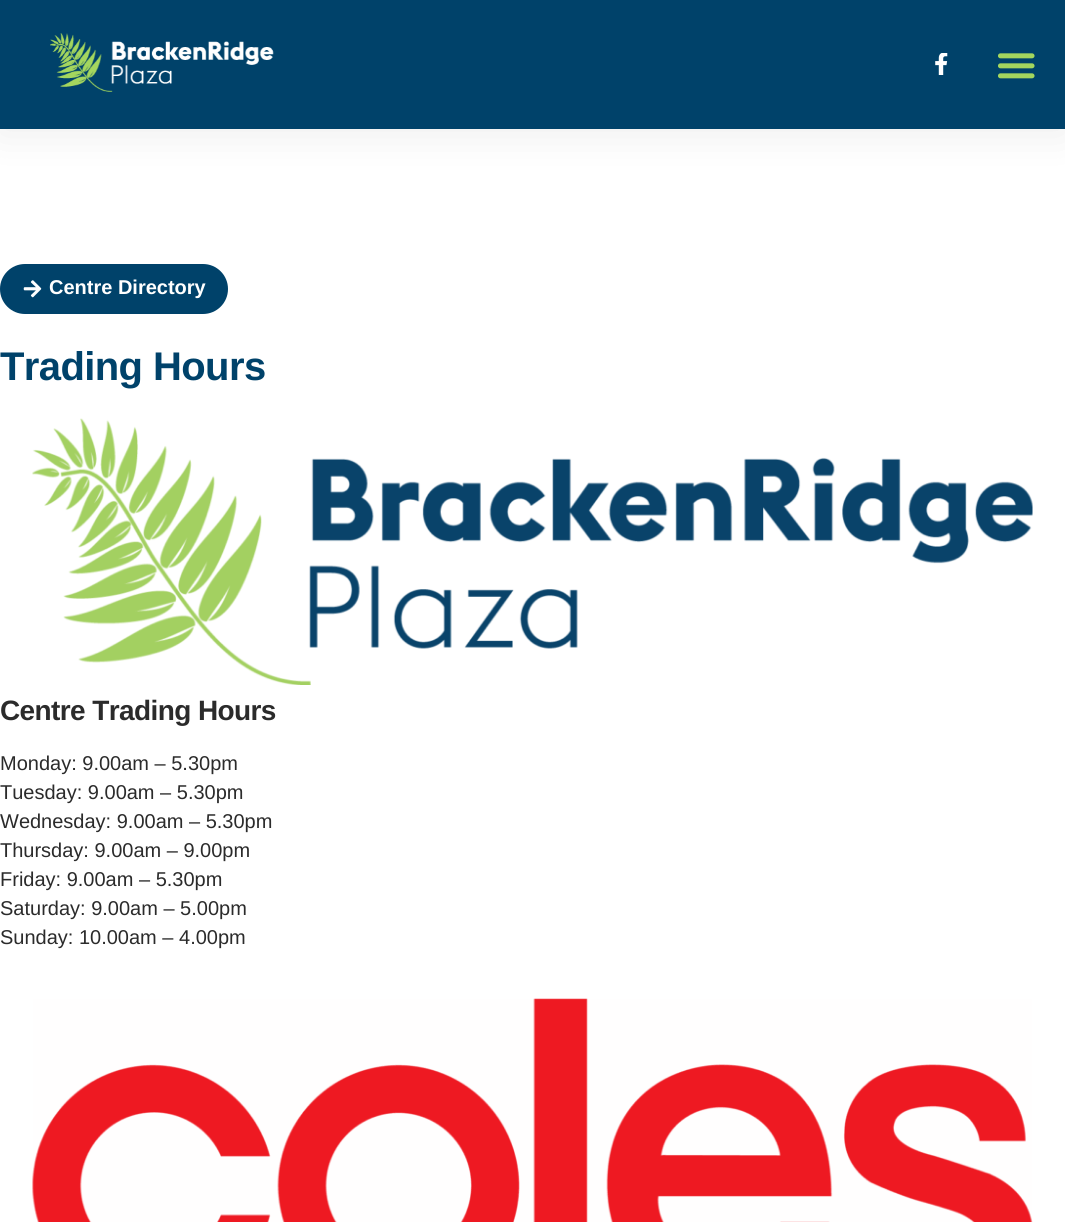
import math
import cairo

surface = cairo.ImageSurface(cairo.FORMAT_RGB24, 1065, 1222)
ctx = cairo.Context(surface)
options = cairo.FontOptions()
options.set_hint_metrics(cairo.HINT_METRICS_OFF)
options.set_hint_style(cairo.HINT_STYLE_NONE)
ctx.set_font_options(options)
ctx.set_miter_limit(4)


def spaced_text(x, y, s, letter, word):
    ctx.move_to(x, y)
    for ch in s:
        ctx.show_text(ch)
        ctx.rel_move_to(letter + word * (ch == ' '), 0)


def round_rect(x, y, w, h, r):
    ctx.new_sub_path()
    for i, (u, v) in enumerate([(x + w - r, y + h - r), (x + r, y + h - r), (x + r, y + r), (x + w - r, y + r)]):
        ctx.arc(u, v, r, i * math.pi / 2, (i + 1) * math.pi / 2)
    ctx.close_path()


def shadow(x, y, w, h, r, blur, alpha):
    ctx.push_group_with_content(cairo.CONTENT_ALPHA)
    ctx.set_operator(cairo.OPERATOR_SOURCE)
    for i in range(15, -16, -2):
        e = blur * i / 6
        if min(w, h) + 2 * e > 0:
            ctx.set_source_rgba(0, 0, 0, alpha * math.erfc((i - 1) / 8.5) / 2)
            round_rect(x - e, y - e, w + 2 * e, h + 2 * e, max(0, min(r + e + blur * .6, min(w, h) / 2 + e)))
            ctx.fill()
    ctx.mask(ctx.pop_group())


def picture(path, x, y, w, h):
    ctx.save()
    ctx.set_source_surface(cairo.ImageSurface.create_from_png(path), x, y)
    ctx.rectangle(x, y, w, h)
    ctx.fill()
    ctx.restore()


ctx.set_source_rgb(1, 1, 1)
ctx.paint()
ctx.set_source_rgb(0, 0, 0)
shadow(-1, 4, 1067, 131, 0, 20.5, 0.07)
ctx.set_source_rgb(0, 0.259, 0.416)
ctx.rectangle(0, 0, 1065, 129)
ctx.fill()
picture("img1.png", 50, 33, 224, 59)
picture("img2.png", 935, 53, 13, 22)
picture("img3.png", 998, 53, 37, 26)
round_rect(0, 264, 228, 50, 25)
ctx.fill()
picture("img4.png", 23, 280, 19, 18)
ctx.select_font_face("Liberation Sans", cairo.FONT_SLANT_NORMAL, cairo.FONT_WEIGHT_BOLD)
ctx.set_font_size(20)
ctx.set_source_rgb(1, 1, 1)
ctx.move_to(49, 294)
ctx.show_text("Centre Directory")
ctx.set_font_size(40)
ctx.set_source_rgb(0, 0.259, 0.416)
spaced_text(0, 380, "Trading Hours", -0.6, 0)
picture("img5.png", 32, 418, 1001, 267)
ctx.set_font_size(28)
ctx.set_source_rgb(0.169, 0.169, 0.169)
spaced_text(0, 720, "Centre Trading Hours", -0.6, 0)
ctx.select_font_face("Liberation Sans")
ctx.set_font_size(20)
ctx.move_to(0, 770)
ctx.show_text("Monday: 9.00am – 5.30pm")
ctx.move_to(0, 799)
ctx.show_text("Tuesday: 9.00am – 5.30pm")
ctx.move_to(0, 828)
ctx.show_text("Wednesday: 9.00am – 5.30pm")
ctx.move_to(0, 857)
ctx.show_text("Thursday: 9.00am – 9.00pm")
ctx.move_to(0, 886)
ctx.show_text("Friday: 9.00am – 5.30pm")
ctx.move_to(0, 915)
ctx.show_text("Saturday: 9.00am – 5.00pm")
ctx.move_to(0, 944)
ctx.show_text("Sunday: 10.00am – 4.00pm")
picture("img6.png", 32, 998, 1001, 224)
surface.write_to_png("page.png")
